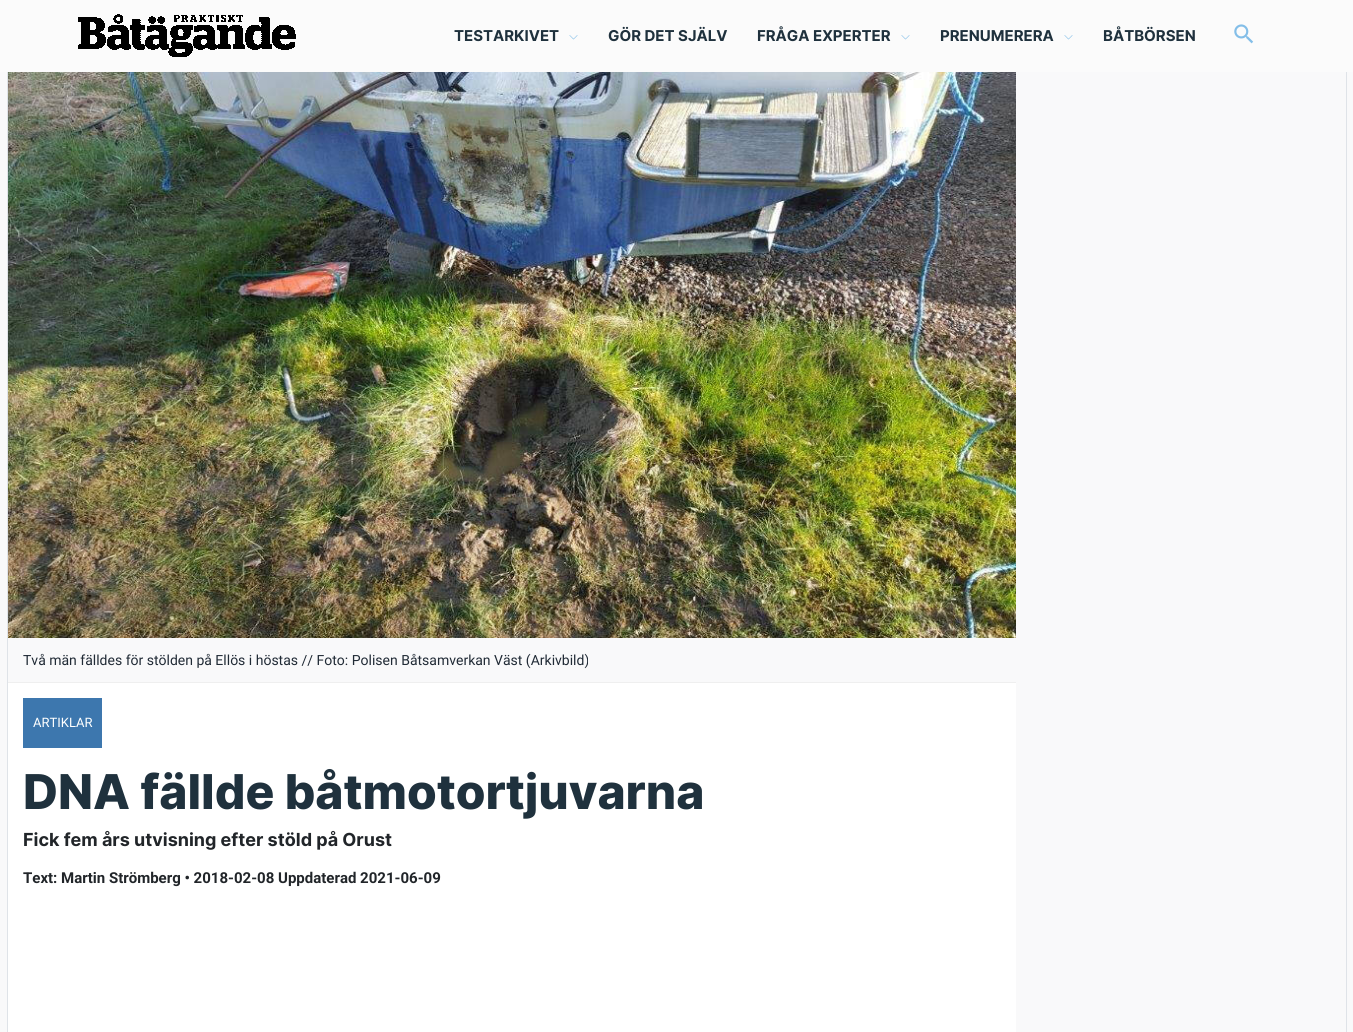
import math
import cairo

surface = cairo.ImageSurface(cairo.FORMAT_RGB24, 1353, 1032)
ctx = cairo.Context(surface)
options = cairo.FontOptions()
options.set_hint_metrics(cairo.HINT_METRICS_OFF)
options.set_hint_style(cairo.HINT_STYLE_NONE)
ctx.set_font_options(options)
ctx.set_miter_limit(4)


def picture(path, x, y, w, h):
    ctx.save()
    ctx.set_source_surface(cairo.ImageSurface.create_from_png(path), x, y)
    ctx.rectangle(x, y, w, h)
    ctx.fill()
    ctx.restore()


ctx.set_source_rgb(0.973, 0.976, 0.98)
ctx.paint()
ctx.set_source_rgb(0.984, 0.984, 0.984)
ctx.rectangle(0, 0, 1353, 72)
ctx.fill()
picture("img1.png", 78, 14, 218, 43)
ctx.select_font_face("Inter", cairo.FONT_SLANT_NORMAL, cairo.FONT_WEIGHT_BOLD)
ctx.set_font_size(15)
ctx.set_source_rgb(0.122, 0.192, 0.239)
ctx.move_to(454, 41)
ctx.show_text("TESTARKIVET")
picture("img2.png", 569, 35, 9, 5)
ctx.move_to(608, 41)
ctx.show_text("GÖR DET SJÄLV")
ctx.move_to(757, 41)
ctx.show_text("FRÅGA EXPERTER")
picture("img2.png", 901, 35, 9, 5)
ctx.move_to(940, 41)
ctx.show_text("PRENUMERERA")
picture("img2.png", 1064, 35, 9, 5)
ctx.move_to(1103, 41)
ctx.show_text("BÅTBÖRSEN")
picture("img3.png", 1234, 24, 20, 20)
ctx.set_source_rgb(0.875, 0.89, 0.91)
ctx.rectangle(1346, 72, 1, 960)
ctx.fill()
ctx.rectangle(7, 72, 1, 960)
ctx.fill()
ctx.set_source_rgb(1, 1, 1)
ctx.rectangle(8, 683, 1008, 349)
ctx.fill()
picture("img4.png", 8, 72, 1008, 566)
ctx.set_source_rgb(0.937, 0.937, 0.937)
ctx.rectangle(8, 682, 1008, 1)
ctx.fill()
ctx.select_font_face("Roboto")
ctx.set_font_size(14)
ctx.set_source_rgb(0.129, 0.169, 0.212)
ctx.move_to(23, 665)
ctx.show_text("Två män fälldes för stölden på Ellös i höstas // Foto: Polisen Båtsamverkan Väst (Arkivbild)")
ctx.set_source_rgb(0.239, 0.467, 0.682)
ctx.rectangle(23, 698, 79, 50)
ctx.fill()
ctx.set_font_size(13)
ctx.set_source_rgb(1, 1, 1)
ctx.move_to(33, 727)
ctx.show_text("ARTIKLAR")
ctx.select_font_face("Inter ExtraBold")
ctx.set_font_size(48)
ctx.set_source_rgb(0.122, 0.192, 0.239)
ctx.move_to(23, 809)
ctx.show_text("DNA fällde båtmotortjuvarna")
ctx.select_font_face("Inter", cairo.FONT_SLANT_NORMAL, cairo.FONT_WEIGHT_BOLD)
ctx.set_font_size(18)
ctx.set_source_rgb(0.129, 0.145, 0.161)
ctx.move_to(23, 846)
ctx.show_text("Fick fem års utvisning efter stöld på Orust")
ctx.select_font_face("Roboto", cairo.FONT_SLANT_NORMAL, cairo.FONT_WEIGHT_BOLD)
ctx.set_font_size(15)
ctx.move_to(23, 883)
ctx.show_text("Text: Martin Strömberg • 2018-02-08 Uppdaterad 2021-06-09")
surface.write_to_png("page.png")
